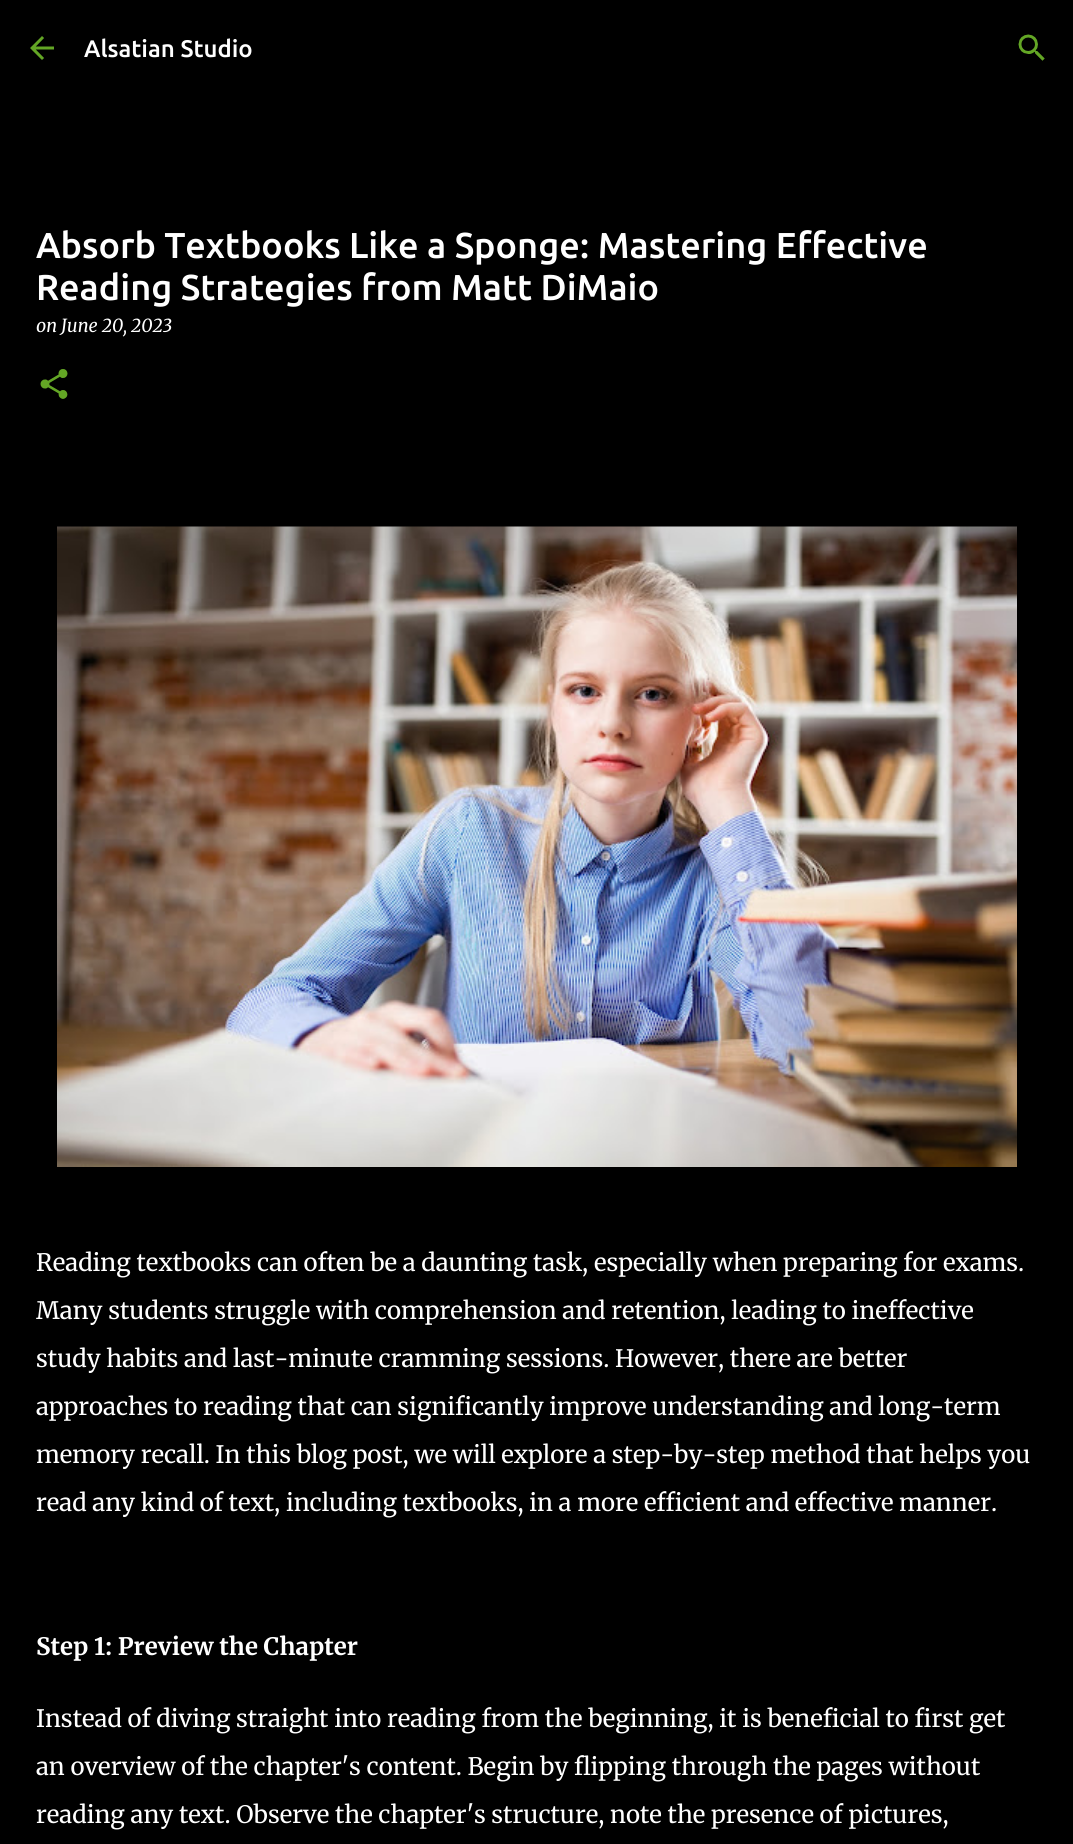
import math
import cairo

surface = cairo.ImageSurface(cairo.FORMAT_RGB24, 1073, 1844)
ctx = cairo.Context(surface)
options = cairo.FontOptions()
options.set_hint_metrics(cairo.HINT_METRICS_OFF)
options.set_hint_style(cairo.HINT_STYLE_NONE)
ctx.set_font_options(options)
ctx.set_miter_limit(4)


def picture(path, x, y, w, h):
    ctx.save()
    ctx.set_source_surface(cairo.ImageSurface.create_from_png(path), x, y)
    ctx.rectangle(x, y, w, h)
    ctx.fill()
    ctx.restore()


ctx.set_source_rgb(0, 0, 0)
ctx.paint()
picture("img1.png", 30, 36, 24, 24)
ctx.select_font_face("Ubuntu Medium")
ctx.set_font_size(24)
ctx.set_source_rgb(1, 1, 1)
ctx.move_to(84, 57)
ctx.show_text("Alsatian Studio")
picture("img2.png", 1018, 34, 27, 27)
ctx.set_font_size(36)
ctx.move_to(36, 258)
ctx.show_text("Absorb Textbooks Like a Sponge: Mastering Effective")
ctx.move_to(36, 300)
ctx.show_text("Reading Strategies from Matt DiMaio")
ctx.select_font_face("Merriweather Light", cairo.FONT_SLANT_ITALIC)
ctx.set_font_size(18)
ctx.move_to(36, 332)
ctx.show_text("on June 20, 2023")
picture("img3.png", 40, 369, 28, 30)
picture("img4.png", 57, 526, 960, 641)
ctx.select_font_face("Merriweather Light")
ctx.set_font_size(24)
ctx.move_to(36, 1271)
ctx.show_text("Reading textbooks can often be a daunting task, especially when preparing for exams.")
ctx.move_to(36, 1319)
ctx.show_text("Many students struggle with comprehension and retention, leading to ineffective")
ctx.move_to(36, 1367)
ctx.show_text("study habits and last-minute cramming sessions. However, there are better")
ctx.move_to(36, 1415)
ctx.show_text("approaches to reading that can significantly improve understanding and long-term")
ctx.move_to(36, 1463)
ctx.show_text("memory recall. In this blog post, we will explore a step-by-step method that helps you")
ctx.move_to(36, 1511)
ctx.show_text("read any kind of text, including textbooks, in a more efficient and effective manner.")
ctx.select_font_face("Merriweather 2 Light")
ctx.move_to(36, 1655)
ctx.show_text("Step 1: Preview the Chapter")
ctx.select_font_face("Merriweather Light")
ctx.move_to(36, 1727)
ctx.show_text("Instead of diving straight into reading from the beginning, it is beneficial to first get")
ctx.move_to(36, 1775)
ctx.show_text("an overview of the chapter's content. Begin by flipping through the pages without")
ctx.move_to(36, 1823)
ctx.show_text("reading any text. Observe the chapter's structure, note the presence of pictures,")
surface.write_to_png("page.png")
